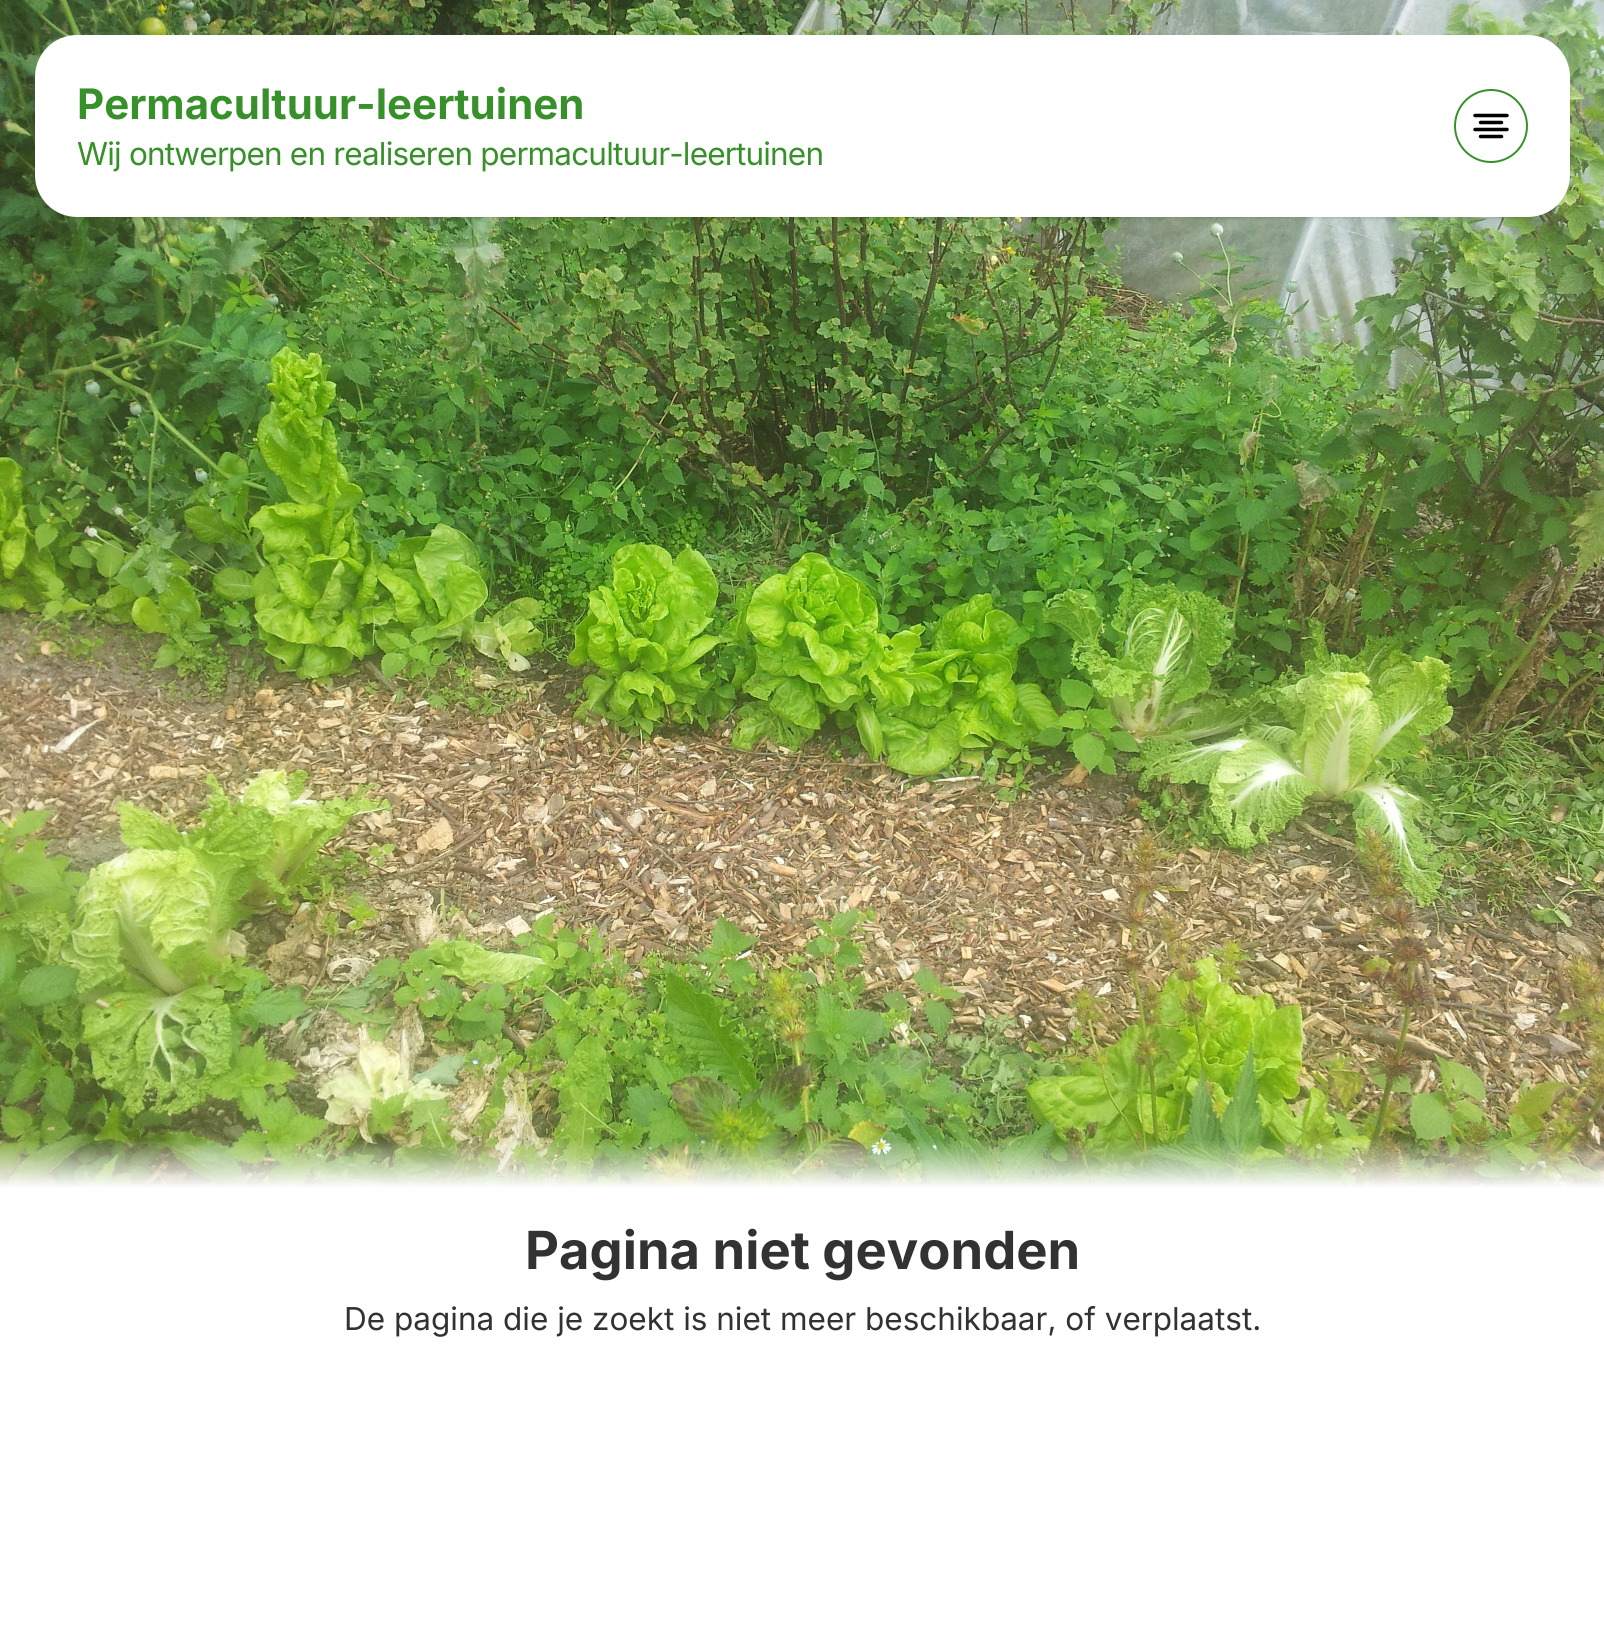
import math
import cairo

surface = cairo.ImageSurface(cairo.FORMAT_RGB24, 1604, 1649)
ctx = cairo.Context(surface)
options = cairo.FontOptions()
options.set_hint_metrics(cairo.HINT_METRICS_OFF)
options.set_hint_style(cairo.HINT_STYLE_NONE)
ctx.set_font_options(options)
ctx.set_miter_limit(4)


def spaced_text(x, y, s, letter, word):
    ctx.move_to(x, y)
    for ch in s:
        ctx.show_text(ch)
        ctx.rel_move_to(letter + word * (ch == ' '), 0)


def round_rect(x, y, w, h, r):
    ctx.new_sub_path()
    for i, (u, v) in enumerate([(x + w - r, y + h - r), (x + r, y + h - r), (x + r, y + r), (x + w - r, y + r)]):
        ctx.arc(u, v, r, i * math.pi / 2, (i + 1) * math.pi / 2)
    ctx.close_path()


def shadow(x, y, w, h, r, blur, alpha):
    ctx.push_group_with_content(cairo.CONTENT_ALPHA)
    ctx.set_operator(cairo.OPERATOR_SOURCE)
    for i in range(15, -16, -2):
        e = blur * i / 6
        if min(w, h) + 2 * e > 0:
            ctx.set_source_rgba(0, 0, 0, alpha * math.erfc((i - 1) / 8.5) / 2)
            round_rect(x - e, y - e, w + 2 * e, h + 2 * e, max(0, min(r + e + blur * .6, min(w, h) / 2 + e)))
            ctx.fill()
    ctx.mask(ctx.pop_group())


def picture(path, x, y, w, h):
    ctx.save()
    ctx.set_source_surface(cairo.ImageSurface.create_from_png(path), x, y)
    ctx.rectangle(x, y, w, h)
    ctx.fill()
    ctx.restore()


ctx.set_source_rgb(1, 1, 1)
ctx.paint()
picture("img1.png", 0, 0, 1604, 1225)
ctx.set_source_rgb(0, 0, 0)
shadow(37, 39, 1531, 178, 40, 2, 0.1)
shadow(35, 37, 1535, 182, 42, 2.5, 0.1)
ctx.set_source_rgb(1, 1, 1)
round_rect(35, 35, 1535, 182, 42)
ctx.fill()
ctx.select_font_face("Inter", cairo.FONT_SLANT_NORMAL, cairo.FONT_WEIGHT_BOLD)
ctx.set_font_size(42)
ctx.set_source_rgb(0.22, 0.565, 0.169)
ctx.move_to(77, 119)
ctx.show_text("Permacultuur-leertuinen")
ctx.select_font_face("Inter")
ctx.set_font_size(31.5)
spaced_text(77, 165, "Wij ontwerpen en realiseren permacultuur-leertuinen", -0.8, 0)
ctx.new_path()
ctx.arc(1491, 126, 36, 0, 2 * math.pi)
ctx.stroke()
ctx.new_path()
ctx.move_to(1501.5, 122.5)
ctx.line_to(1480.5, 122.5)
ctx.move_to(1507, 115.5)
ctx.line_to(1475, 115.5)
ctx.move_to(1507, 129.5)
ctx.line_to(1475, 129.5)
ctx.move_to(1501.5, 136.5)
ctx.line_to(1480.5, 136.5)
ctx.set_source_rgb(0, 0, 0)
ctx.set_line_width(3.5)
ctx.set_line_cap(cairo.LINE_CAP_ROUND)
ctx.set_line_join(cairo.LINE_JOIN_ROUND)
ctx.stroke()
ctx.select_font_face("Inter", cairo.FONT_SLANT_NORMAL, cairo.FONT_WEIGHT_BOLD)
ctx.set_font_size(52.5)
ctx.set_source_rgb(0.196, 0.196, 0.2)
ctx.move_to(525, 1269)
ctx.show_text("Pagina niet gevonden")
ctx.select_font_face("Inter")
ctx.set_font_size(31.5)
ctx.move_to(344, 1330)
ctx.show_text("De pagina die je zoekt is niet meer beschikbaar, of verplaatst.")
surface.write_to_png("page.png")
